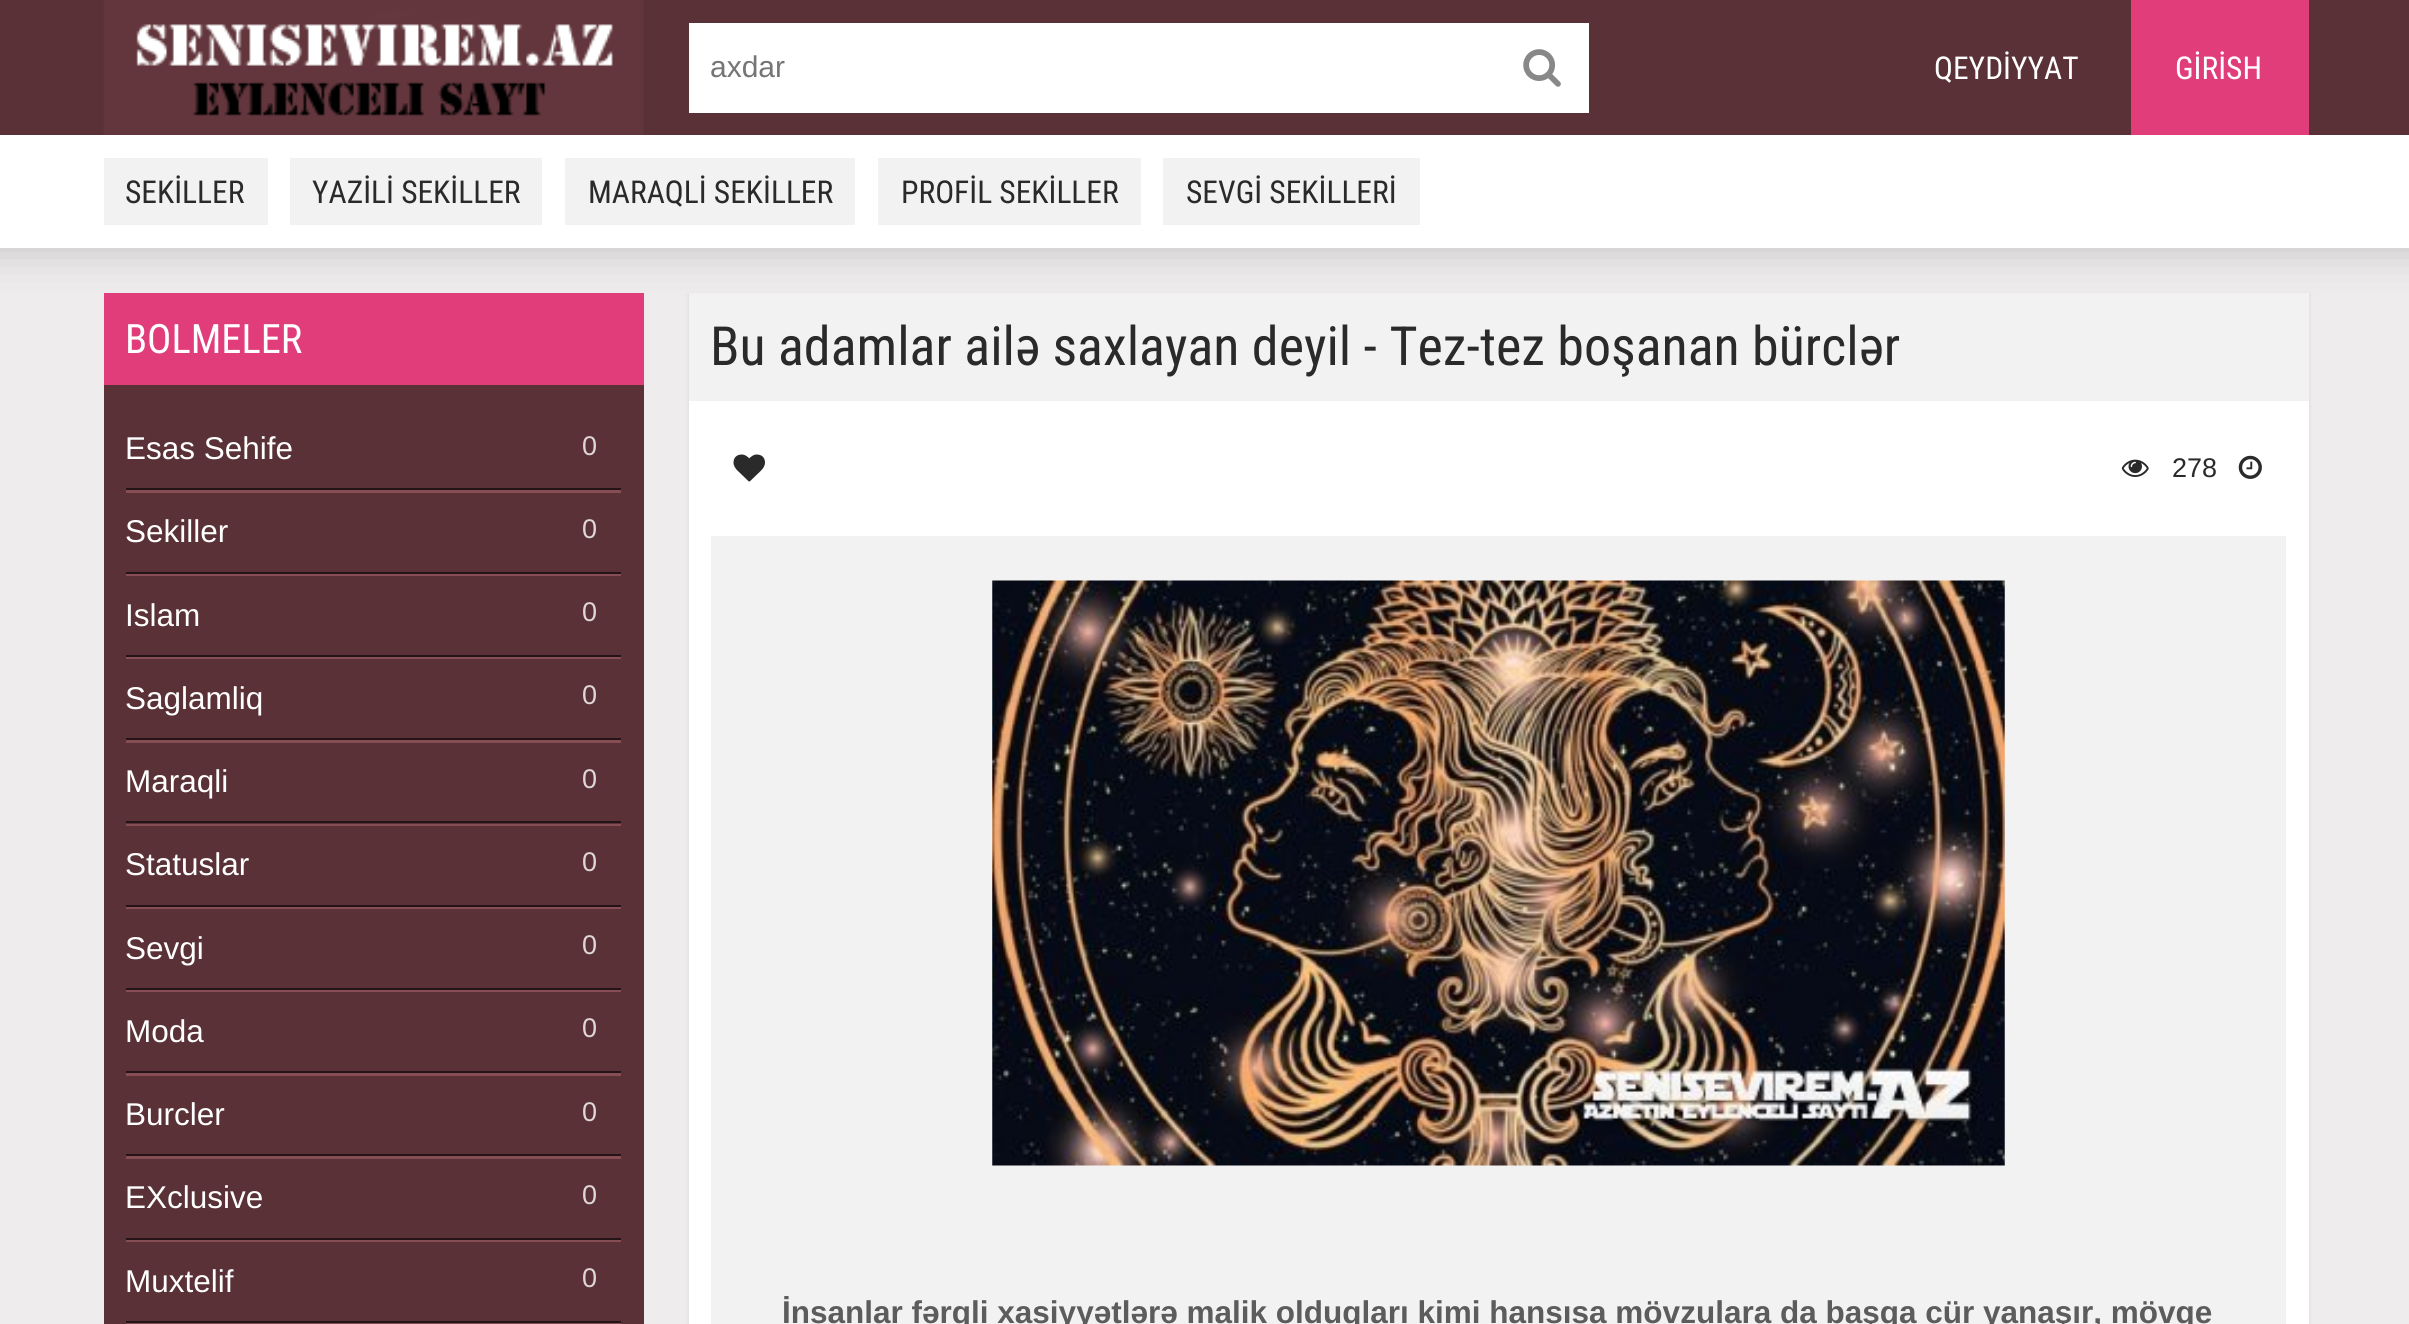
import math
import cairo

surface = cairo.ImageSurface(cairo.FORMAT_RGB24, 2409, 1324)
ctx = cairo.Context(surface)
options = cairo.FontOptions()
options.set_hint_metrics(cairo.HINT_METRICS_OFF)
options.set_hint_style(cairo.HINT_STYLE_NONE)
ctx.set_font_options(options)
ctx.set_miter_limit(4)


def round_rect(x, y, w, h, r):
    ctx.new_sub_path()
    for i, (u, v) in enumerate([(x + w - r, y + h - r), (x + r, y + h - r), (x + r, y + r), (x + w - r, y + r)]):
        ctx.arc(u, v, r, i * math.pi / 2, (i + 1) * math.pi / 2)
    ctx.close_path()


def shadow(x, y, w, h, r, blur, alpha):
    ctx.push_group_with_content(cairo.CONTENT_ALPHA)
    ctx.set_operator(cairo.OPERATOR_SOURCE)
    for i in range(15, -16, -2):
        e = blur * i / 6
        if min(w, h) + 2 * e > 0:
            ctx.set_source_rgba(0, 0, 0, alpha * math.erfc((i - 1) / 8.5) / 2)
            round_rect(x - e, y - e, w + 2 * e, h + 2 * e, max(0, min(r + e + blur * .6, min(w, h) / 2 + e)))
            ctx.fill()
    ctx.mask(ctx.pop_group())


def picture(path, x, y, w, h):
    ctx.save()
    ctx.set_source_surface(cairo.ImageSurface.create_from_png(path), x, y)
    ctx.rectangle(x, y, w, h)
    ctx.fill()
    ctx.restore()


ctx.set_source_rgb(0.933, 0.922, 0.922)
ctx.paint()
ctx.set_source_rgb(0.349, 0.192, 0.212)
ctx.rectangle(0, 0, 2409, 135)
ctx.fill()
picture("img1.png", 103, 0, 541, 135)
ctx.set_source_rgb(1, 1, 1)
ctx.rectangle(689, 23, 900, 90)
ctx.fill()
ctx.select_font_face("Liberation Sans")
ctx.set_font_size(30)
ctx.set_source_rgb(0.459, 0.459, 0.459)
ctx.move_to(710, 77)
ctx.show_text("axdar")
picture("img2.png", 1523, 49, 38, 38)
ctx.select_font_face("Roboto Condensed")
ctx.set_font_size(31.5)
ctx.set_source_rgb(1, 1, 1)
ctx.move_to(1934, 79)
ctx.show_text("QEYDİYYAT")
ctx.set_source_rgb(0.882, 0.239, 0.478)
ctx.rectangle(2131, 0, 178, 135)
ctx.fill()
ctx.set_source_rgb(1, 1, 1)
ctx.move_to(2175, 79)
ctx.show_text("GİRİSH")
ctx.set_source_rgb(0, 0, 0)
shadow(-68, 225, 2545, 23, 0, 22.5, 0.2)
ctx.set_source_rgb(1, 1, 1)
ctx.rectangle(0, 135, 2409, 113)
ctx.fill()
ctx.set_source_rgb(0.949, 0.949, 0.949)
ctx.rectangle(104, 158, 164, 67)
ctx.fill()
ctx.set_source_rgb(0.165, 0.165, 0.165)
ctx.move_to(125, 203)
ctx.show_text("SEKİLLER")
ctx.set_source_rgb(0.949, 0.949, 0.949)
ctx.rectangle(290, 158, 252, 67)
ctx.fill()
ctx.set_source_rgb(0.165, 0.165, 0.165)
ctx.move_to(312, 203)
ctx.show_text("YAZİLİ SEKİLLER")
ctx.set_source_rgb(0.949, 0.949, 0.949)
ctx.rectangle(565, 158, 290, 67)
ctx.fill()
ctx.set_source_rgb(0.165, 0.165, 0.165)
ctx.move_to(588, 203)
ctx.show_text("MARAQLİ SEKİLLER")
ctx.set_source_rgb(0.949, 0.949, 0.949)
ctx.rectangle(878, 158, 263, 67)
ctx.fill()
ctx.set_source_rgb(0.165, 0.165, 0.165)
ctx.move_to(901, 203)
ctx.show_text("PROFİL SEKİLLER")
ctx.set_source_rgb(0.949, 0.949, 0.949)
ctx.rectangle(1163, 158, 257, 67)
ctx.fill()
ctx.set_source_rgb(0.165, 0.165, 0.165)
ctx.move_to(1186, 203)
ctx.show_text("SEVGİ SEKİLLERİ")
ctx.set_source_rgb(0.349, 0.192, 0.212)
ctx.rectangle(104, 385, 540, 939)
ctx.fill()
ctx.set_source_rgb(0.882, 0.239, 0.478)
ctx.rectangle(104, 293, 540, 92)
ctx.fill()
ctx.set_font_size(40.5)
ctx.set_source_rgb(1, 1, 1)
ctx.move_to(125, 353)
ctx.show_text("BOLMELER")
ctx.set_source_rgb(0.529, 0.302, 0.333)
ctx.rectangle(126, 490, 495, 3)
ctx.fill()
ctx.set_source_rgb(0.145, 0.082, 0.09)
ctx.rectangle(126, 488, 495, 2)
ctx.fill()
ctx.select_font_face("Liberation Sans")
ctx.set_font_size(31.5)
ctx.set_source_rgb(1, 1, 1)
ctx.move_to(125, 459)
ctx.show_text("Esas Sehife")
ctx.set_font_size(27)
ctx.set_source_rgb(0.871, 0.839, 0.843)
ctx.move_to(582, 455)
ctx.show_text("0")
ctx.set_source_rgb(0.529, 0.302, 0.333)
ctx.rectangle(126, 574, 495, 2)
ctx.fill()
ctx.set_source_rgb(0.145, 0.082, 0.09)
ctx.rectangle(126, 572, 495, 2)
ctx.fill()
ctx.set_font_size(31.5)
ctx.set_source_rgb(1, 1, 1)
ctx.move_to(125, 542)
ctx.show_text("Sekiller")
ctx.set_font_size(27)
ctx.set_source_rgb(0.871, 0.839, 0.843)
ctx.move_to(582, 538)
ctx.show_text("0")
ctx.set_source_rgb(0.529, 0.302, 0.333)
ctx.rectangle(126, 657, 495, 2)
ctx.fill()
ctx.set_source_rgb(0.145, 0.082, 0.09)
ctx.rectangle(126, 655, 495, 2)
ctx.fill()
ctx.set_font_size(31.5)
ctx.set_source_rgb(1, 1, 1)
ctx.move_to(125, 626)
ctx.show_text("Islam")
ctx.set_font_size(27)
ctx.set_source_rgb(0.871, 0.839, 0.843)
ctx.move_to(582, 621)
ctx.show_text("0")
ctx.set_source_rgb(0.529, 0.302, 0.333)
ctx.rectangle(126, 740, 495, 3)
ctx.fill()
ctx.set_source_rgb(0.145, 0.082, 0.09)
ctx.rectangle(126, 738, 495, 2)
ctx.fill()
ctx.set_font_size(31.5)
ctx.set_source_rgb(1, 1, 1)
ctx.move_to(125, 709)
ctx.show_text("Saglamliq")
ctx.set_font_size(27)
ctx.set_source_rgb(0.871, 0.839, 0.843)
ctx.move_to(582, 704)
ctx.show_text("0")
ctx.set_source_rgb(0.529, 0.302, 0.333)
ctx.rectangle(126, 824, 495, 2)
ctx.fill()
ctx.set_source_rgb(0.145, 0.082, 0.09)
ctx.rectangle(126, 821, 495, 2)
ctx.fill()
ctx.set_font_size(31.5)
ctx.set_source_rgb(1, 1, 1)
ctx.move_to(125, 792)
ctx.show_text("Maraqli")
ctx.set_font_size(27)
ctx.set_source_rgb(0.871, 0.839, 0.843)
ctx.move_to(582, 788)
ctx.show_text("0")
ctx.set_source_rgb(0.529, 0.302, 0.333)
ctx.rectangle(126, 907, 495, 2)
ctx.fill()
ctx.set_source_rgb(0.145, 0.082, 0.09)
ctx.rectangle(126, 905, 495, 2)
ctx.fill()
ctx.set_font_size(31.5)
ctx.set_source_rgb(1, 1, 1)
ctx.move_to(125, 875)
ctx.show_text("Statuslar")
ctx.set_font_size(27)
ctx.set_source_rgb(0.871, 0.839, 0.843)
ctx.move_to(582, 871)
ctx.show_text("0")
ctx.set_source_rgb(0.529, 0.302, 0.333)
ctx.rectangle(126, 990, 495, 2)
ctx.fill()
ctx.set_source_rgb(0.145, 0.082, 0.09)
ctx.rectangle(126, 988, 495, 2)
ctx.fill()
ctx.set_font_size(31.5)
ctx.set_source_rgb(1, 1, 1)
ctx.move_to(125, 959)
ctx.show_text("Sevgi")
ctx.set_font_size(27)
ctx.set_source_rgb(0.871, 0.839, 0.843)
ctx.move_to(582, 954)
ctx.show_text("0")
ctx.set_source_rgb(0.529, 0.302, 0.333)
ctx.rectangle(126, 1073, 495, 3)
ctx.fill()
ctx.set_source_rgb(0.145, 0.082, 0.09)
ctx.rectangle(126, 1071, 495, 2)
ctx.fill()
ctx.set_font_size(31.5)
ctx.set_source_rgb(1, 1, 1)
ctx.move_to(125, 1042)
ctx.show_text("Moda")
ctx.set_font_size(27)
ctx.set_source_rgb(0.871, 0.839, 0.843)
ctx.move_to(582, 1037)
ctx.show_text("0")
ctx.set_source_rgb(0.529, 0.302, 0.333)
ctx.rectangle(126, 1156, 495, 3)
ctx.fill()
ctx.set_source_rgb(0.145, 0.082, 0.09)
ctx.rectangle(126, 1154, 495, 2)
ctx.fill()
ctx.set_font_size(31.5)
ctx.set_source_rgb(1, 1, 1)
ctx.move_to(125, 1125)
ctx.show_text("Burcler")
ctx.set_font_size(27)
ctx.set_source_rgb(0.871, 0.839, 0.843)
ctx.move_to(582, 1121)
ctx.show_text("0")
ctx.set_source_rgb(0.529, 0.302, 0.333)
ctx.rectangle(126, 1240, 495, 2)
ctx.fill()
ctx.set_source_rgb(0.145, 0.082, 0.09)
ctx.rectangle(126, 1238, 495, 2)
ctx.fill()
ctx.set_font_size(31.5)
ctx.set_source_rgb(1, 1, 1)
ctx.move_to(125, 1208)
ctx.show_text("EXclusive")
ctx.set_font_size(27)
ctx.set_source_rgb(0.871, 0.839, 0.843)
ctx.move_to(582, 1204)
ctx.show_text("0")
ctx.set_source_rgb(0.529, 0.302, 0.333)
ctx.rectangle(126, 1323, 495, 1)
ctx.fill()
ctx.set_source_rgb(0.145, 0.082, 0.09)
ctx.rectangle(126, 1321, 495, 2)
ctx.fill()
ctx.set_font_size(31.5)
ctx.set_source_rgb(1, 1, 1)
ctx.move_to(125, 1292)
ctx.show_text("Muxtelif")
ctx.set_font_size(27)
ctx.set_source_rgb(0.871, 0.839, 0.843)
ctx.move_to(582, 1287)
ctx.show_text("0")
ctx.set_source_rgb(0, 0, 0)
shadow(689, 295, 1620, 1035, 0, 2, 0.1)
ctx.set_source_rgb(1, 1, 1)
ctx.rectangle(689, 401, 1620, 923)
ctx.fill()
ctx.set_source_rgb(0.949, 0.949, 0.949)
ctx.rectangle(689, 293, 1620, 108)
ctx.fill()
ctx.select_font_face("Roboto Condensed")
ctx.set_font_size(54)
ctx.set_source_rgb(0.165, 0.165, 0.165)
ctx.move_to(710, 365)
ctx.show_text("Bu adamlar ailə saxlayan deyil - Tez-tez boşanan bürclər")
picture("img3.png", 733, 454, 32, 28)
picture("img4.png", 2121, 459, 28, 18)
ctx.select_font_face("Liberation Sans")
ctx.set_font_size(27)
ctx.move_to(2172, 477)
ctx.show_text("278")
picture("img5.png", 2238, 455, 24, 24)
ctx.set_source_rgb(0.949, 0.949, 0.949)
ctx.rectangle(711, 536, 1575, 788)
ctx.fill()
picture("img6.png", 992, 580, 1013, 586)
ctx.select_font_face("Liberation Sans", cairo.FONT_SLANT_NORMAL, cairo.FONT_WEIGHT_BOLD)
ctx.set_font_size(31.5)
ctx.set_source_rgb(0.361, 0.361, 0.361)
ctx.move_to(782, 1323)
ctx.show_text("İnsanlar fərqli xasiyyətlərə malik olduqları kimi hansısa mövzulara da başqa cür yanaşır, mövqe")
surface.write_to_png("page.png")
